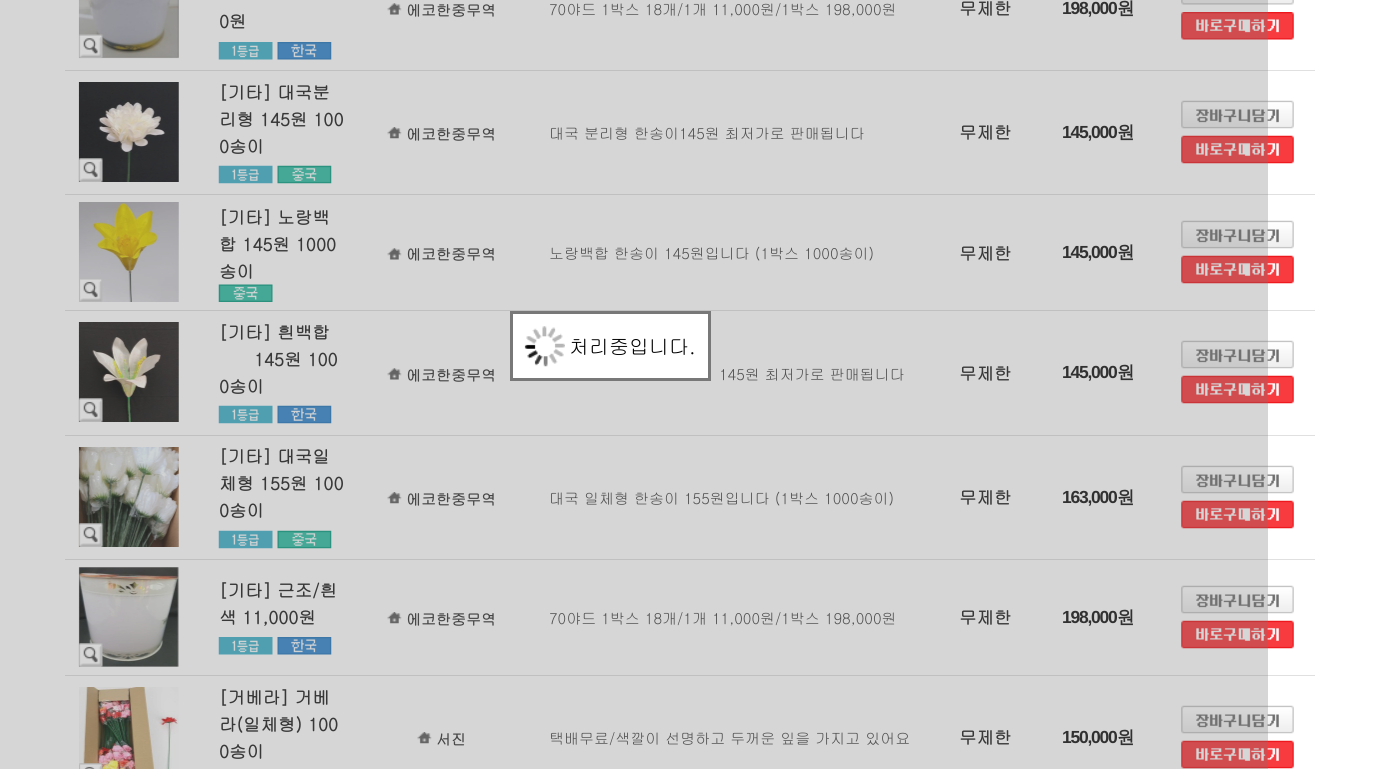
import math
import cairo

surface = cairo.ImageSurface(cairo.FORMAT_RGB24, 1379, 769)
ctx = cairo.Context(surface)
options = cairo.FontOptions()
options.set_hint_metrics(cairo.HINT_METRICS_OFF)
options.set_hint_style(cairo.HINT_STYLE_NONE)
ctx.set_font_options(options)
ctx.set_miter_limit(4)


def spaced_text(x, y, s, letter, word):
    ctx.move_to(x, y)
    for ch in s:
        ctx.show_text(ch)
        ctx.rel_move_to(letter + word * (ch == ' '), 0)


def picture(path, x, y, w, h):
    ctx.save()
    ctx.set_source_surface(cairo.ImageSurface.create_from_png(path), x, y)
    ctx.rectangle(x, y, w, h)
    ctx.fill()
    ctx.restore()


ctx.set_source_rgb(1, 1, 1)
ctx.paint()
ctx.set_source_rgb(0.878, 0.878, 0.878)
ctx.rectangle(65, 70, 1250, 1)
ctx.fill()
picture("img1.png", 1181, 0, 113, 5)
picture("img2.png", 1181, 12, 113, 28)
picture("img3.png", 78, 0, 101, 59)
picture("img4.png", 79, 34, 24, 24)
picture("img5.png", 387, 3, 15, 12)
ctx.select_font_face("Gulim", cairo.FONT_SLANT_NORMAL, cairo.FONT_WEIGHT_BOLD)
ctx.set_font_size(15)
ctx.set_source_rgb(0.2, 0.2, 0.2)
ctx.move_to(406, 16)
ctx.show_text("에코한중무역")
ctx.select_font_face("Gulim")
ctx.set_source_rgb(0.255, 0.255, 0.255)
ctx.move_to(549, 15)
ctx.show_text("70야드 1박스 18개/1개 11,000원/1박스 198,000원")
ctx.select_font_face("Gulim", cairo.FONT_SLANT_NORMAL, cairo.FONT_WEIGHT_BOLD)
ctx.set_font_size(17.5)
ctx.set_source_rgb(0.118, 0.118, 0.118)
ctx.move_to(959, 15)
ctx.show_text("무제한")
ctx.select_font_face("Liberation Sans", cairo.FONT_SLANT_NORMAL, cairo.FONT_WEIGHT_BOLD)
ctx.set_source_rgb(0.082, 0.082, 0.082)
spaced_text(1062, 14, "198,000", -1.25, 0)
ctx.select_font_face("WenQuanYi Zen Hei", cairo.FONT_SLANT_NORMAL, cairo.FONT_WEIGHT_BOLD)
spaced_text(1117, 14, "원", -1.25, 0)
ctx.select_font_face("Gulim", cairo.FONT_SLANT_NORMAL, cairo.FONT_WEIGHT_BOLD)
ctx.set_source_rgb(0.118, 0.118, 0.118)
ctx.move_to(219, 28)
ctx.show_text("0원")
picture("img6.png", 218, 42, 55, 18)
picture("img7.png", 277, 42, 55, 18)
picture("img8.png", 78, 82, 101, 100)
picture("img9.png", 79, 158, 24, 24)
ctx.move_to(219, 99)
ctx.show_text("[기타] 대국분")
ctx.move_to(219, 126)
ctx.show_text("리형 145원 100")
ctx.move_to(219, 153)
ctx.show_text("0송이")
picture("img10.png", 218, 165, 55, 19)
picture("img11.png", 277, 165, 55, 19)
ctx.set_source_rgb(0.878, 0.878, 0.878)
ctx.rectangle(65, 194, 1250, 1)
ctx.fill()
picture("img12.png", 1181, 100, 113, 29)
picture("img13.png", 1181, 135, 113, 29)
picture("img14.png", 387, 127, 15, 12)
ctx.set_font_size(15)
ctx.set_source_rgb(0.2, 0.2, 0.2)
ctx.move_to(406, 140)
ctx.show_text("에코한중무역")
ctx.select_font_face("Gulim")
ctx.set_source_rgb(0.255, 0.255, 0.255)
ctx.move_to(549, 139)
ctx.show_text("대국 분리형 한송이145원 최저가로 판매됩니다")
ctx.select_font_face("Gulim", cairo.FONT_SLANT_NORMAL, cairo.FONT_WEIGHT_BOLD)
ctx.set_font_size(17.5)
ctx.set_source_rgb(0.118, 0.118, 0.118)
ctx.move_to(959, 139)
ctx.show_text("무제한")
ctx.select_font_face("Liberation Sans", cairo.FONT_SLANT_NORMAL, cairo.FONT_WEIGHT_BOLD)
ctx.set_source_rgb(0.082, 0.082, 0.082)
spaced_text(1062, 138, "145,000", -1.25, 0)
ctx.select_font_face("WenQuanYi Zen Hei", cairo.FONT_SLANT_NORMAL, cairo.FONT_WEIGHT_BOLD)
spaced_text(1117, 138, "원", -1.25, 0)
picture("img15.png", 78, 202, 101, 100)
picture("img16.png", 79, 279, 24, 23)
ctx.select_font_face("Gulim", cairo.FONT_SLANT_NORMAL, cairo.FONT_WEIGHT_BOLD)
ctx.set_source_rgb(0.118, 0.118, 0.118)
ctx.move_to(219, 224)
ctx.show_text("[기타] 노랑백")
ctx.move_to(219, 251)
ctx.show_text("합 145원 1000")
ctx.move_to(219, 278)
ctx.show_text("송이")
picture("img17.png", 218, 284, 55, 18)
ctx.set_source_rgb(0.878, 0.878, 0.878)
ctx.rectangle(65, 310, 1250, 1)
ctx.fill()
picture("img12.png", 1181, 220, 113, 29)
picture("img13.png", 1181, 255, 113, 29)
picture("img5.png", 387, 248, 15, 12)
ctx.set_font_size(15)
ctx.set_source_rgb(0.2, 0.2, 0.2)
ctx.move_to(406, 260)
ctx.show_text("에코한중무역")
ctx.select_font_face("Gulim")
ctx.set_source_rgb(0.255, 0.255, 0.255)
ctx.move_to(549, 259)
ctx.show_text("노랑백합 한송이 145원입니다 (1박스 1000송이)")
ctx.select_font_face("Gulim", cairo.FONT_SLANT_NORMAL, cairo.FONT_WEIGHT_BOLD)
ctx.set_font_size(17.5)
ctx.set_source_rgb(0.118, 0.118, 0.118)
ctx.move_to(959, 260)
ctx.show_text("무제한")
ctx.select_font_face("Liberation Sans", cairo.FONT_SLANT_NORMAL, cairo.FONT_WEIGHT_BOLD)
ctx.set_source_rgb(0.082, 0.082, 0.082)
spaced_text(1062, 258, "145,000", -1.25, 0)
ctx.select_font_face("WenQuanYi Zen Hei", cairo.FONT_SLANT_NORMAL, cairo.FONT_WEIGHT_BOLD)
spaced_text(1117, 258, "원", -1.25, 0)
picture("img18.png", 78, 322, 101, 100)
picture("img19.png", 79, 398, 24, 24)
ctx.select_font_face("Gulim", cairo.FONT_SLANT_NORMAL, cairo.FONT_WEIGHT_BOLD)
ctx.set_source_rgb(0.118, 0.118, 0.118)
ctx.move_to(219, 339)
ctx.show_text("[기타] 흰백합")
ctx.move_to(254, 366)
ctx.show_text("145원 100")
ctx.move_to(219, 393)
ctx.show_text("0송이")
picture("img10.png", 218, 405, 55, 19)
picture("img20.png", 277, 405, 55, 19)
ctx.set_source_rgb(0.878, 0.878, 0.878)
ctx.rectangle(65, 435, 1250, 1)
ctx.fill()
picture("img12.png", 1181, 340, 113, 29)
picture("img13.png", 1181, 375, 113, 29)
picture("img5.png", 387, 368, 15, 12)
ctx.set_font_size(15)
ctx.set_source_rgb(0.2, 0.2, 0.2)
ctx.move_to(406, 381)
ctx.show_text("에코한중무역")
ctx.select_font_face("Gulim")
ctx.set_source_rgb(0.255, 0.255, 0.255)
ctx.move_to(719, 380)
ctx.show_text("145원 최저가로 판매됩니다")
ctx.select_font_face("Gulim", cairo.FONT_SLANT_NORMAL, cairo.FONT_WEIGHT_BOLD)
ctx.set_font_size(17.5)
ctx.set_source_rgb(0.118, 0.118, 0.118)
ctx.move_to(959, 380)
ctx.show_text("무제한")
ctx.select_font_face("Liberation Sans", cairo.FONT_SLANT_NORMAL, cairo.FONT_WEIGHT_BOLD)
ctx.set_source_rgb(0.082, 0.082, 0.082)
spaced_text(1062, 378, "145,000", -1.25, 0)
ctx.select_font_face("WenQuanYi Zen Hei", cairo.FONT_SLANT_NORMAL, cairo.FONT_WEIGHT_BOLD)
spaced_text(1117, 378, "원", -1.25, 0)
picture("img21.png", 78, 447, 101, 100)
picture("img22.png", 79, 523, 24, 24)
ctx.select_font_face("Gulim", cairo.FONT_SLANT_NORMAL, cairo.FONT_WEIGHT_BOLD)
ctx.set_source_rgb(0.118, 0.118, 0.118)
ctx.move_to(219, 463)
ctx.show_text("[기타] 대국일")
ctx.move_to(219, 490)
ctx.show_text("체형 155원 100")
ctx.move_to(219, 517)
ctx.show_text("0송이")
picture("img10.png", 218, 530, 55, 19)
picture("img11.png", 277, 530, 55, 19)
ctx.set_source_rgb(0.878, 0.878, 0.878)
ctx.rectangle(65, 559, 1250, 1)
ctx.fill()
picture("img23.png", 1181, 465, 113, 29)
picture("img13.png", 1181, 500, 113, 29)
picture("img14.png", 387, 492, 15, 12)
ctx.set_font_size(15)
ctx.set_source_rgb(0.2, 0.2, 0.2)
ctx.move_to(406, 505)
ctx.show_text("에코한중무역")
ctx.select_font_face("Gulim")
ctx.set_source_rgb(0.255, 0.255, 0.255)
ctx.move_to(549, 504)
ctx.show_text("대국 일체형 한송이 155원입니다 (1박스 1000송이)")
ctx.select_font_face("Gulim", cairo.FONT_SLANT_NORMAL, cairo.FONT_WEIGHT_BOLD)
ctx.set_font_size(17.5)
ctx.set_source_rgb(0.118, 0.118, 0.118)
ctx.move_to(959, 504)
ctx.show_text("무제한")
ctx.select_font_face("Liberation Sans", cairo.FONT_SLANT_NORMAL, cairo.FONT_WEIGHT_BOLD)
ctx.set_source_rgb(0.082, 0.082, 0.082)
spaced_text(1062, 503, "163,000", -1.25, 0)
ctx.select_font_face("WenQuanYi Zen Hei", cairo.FONT_SLANT_NORMAL, cairo.FONT_WEIGHT_BOLD)
spaced_text(1117, 503, "원", -1.25, 0)
picture("img24.png", 78, 567, 101, 100)
picture("img25.png", 79, 643, 24, 24)
ctx.select_font_face("Gulim", cairo.FONT_SLANT_NORMAL, cairo.FONT_WEIGHT_BOLD)
ctx.set_source_rgb(0.118, 0.118, 0.118)
ctx.move_to(219, 597)
ctx.show_text("[기타] 근조/흰")
ctx.move_to(219, 624)
ctx.show_text("색 11,000원")
picture("img6.png", 218, 637, 55, 18)
picture("img7.png", 277, 637, 55, 18)
ctx.set_source_rgb(0.878, 0.878, 0.878)
ctx.rectangle(65, 675, 1250, 1)
ctx.fill()
picture("img12.png", 1181, 585, 113, 29)
picture("img13.png", 1181, 620, 113, 29)
picture("img14.png", 387, 612, 15, 12)
ctx.set_font_size(15)
ctx.set_source_rgb(0.2, 0.2, 0.2)
ctx.move_to(406, 625)
ctx.show_text("에코한중무역")
ctx.select_font_face("Gulim")
ctx.set_source_rgb(0.255, 0.255, 0.255)
ctx.move_to(549, 624)
ctx.show_text("70야드 1박스 18개/1개 11,000원/1박스 198,000원")
ctx.select_font_face("Gulim", cairo.FONT_SLANT_NORMAL, cairo.FONT_WEIGHT_BOLD)
ctx.set_font_size(17.5)
ctx.set_source_rgb(0.118, 0.118, 0.118)
ctx.move_to(959, 624)
ctx.show_text("무제한")
ctx.select_font_face("Liberation Sans", cairo.FONT_SLANT_NORMAL, cairo.FONT_WEIGHT_BOLD)
ctx.set_source_rgb(0.082, 0.082, 0.082)
spaced_text(1062, 623, "198,000", -1.25, 0)
ctx.select_font_face("WenQuanYi Zen Hei", cairo.FONT_SLANT_NORMAL, cairo.FONT_WEIGHT_BOLD)
spaced_text(1117, 623, "원", -1.25, 0)
picture("img26.png", 79, 687, 100, 82)
picture("img27.png", 79, 763, 24, 6)
ctx.select_font_face("Gulim", cairo.FONT_SLANT_NORMAL, cairo.FONT_WEIGHT_BOLD)
ctx.set_source_rgb(0.118, 0.118, 0.118)
ctx.move_to(219, 704)
ctx.show_text("[거베라] 거베")
ctx.move_to(219, 731)
ctx.show_text("라(일체형) 100")
ctx.move_to(219, 758)
ctx.show_text("0송이")
picture("img28.png", 417, 732, 15, 12)
ctx.set_font_size(15)
ctx.set_source_rgb(0.2, 0.2, 0.2)
ctx.move_to(436, 745)
ctx.show_text("서진")
ctx.select_font_face("Gulim")
ctx.set_source_rgb(0.255, 0.255, 0.255)
ctx.move_to(549, 744)
ctx.show_text("택배무료/색깔이 선명하고 두꺼운 잎을 가지고 있어요")
ctx.select_font_face("Gulim", cairo.FONT_SLANT_NORMAL, cairo.FONT_WEIGHT_BOLD)
ctx.set_font_size(17.5)
ctx.set_source_rgb(0.118, 0.118, 0.118)
ctx.move_to(959, 744)
ctx.show_text("무제한")
ctx.select_font_face("Liberation Sans", cairo.FONT_SLANT_NORMAL, cairo.FONT_WEIGHT_BOLD)
ctx.set_source_rgb(0.082, 0.082, 0.082)
spaced_text(1062, 743, "150,000", -1.25, 0)
ctx.select_font_face("WenQuanYi Zen Hei", cairo.FONT_SLANT_NORMAL, cairo.FONT_WEIGHT_BOLD)
spaced_text(1117, 743, "원", -1.25, 0)
picture("img12.png", 1181, 705, 113, 29)
picture("img13.png", 1181, 740, 113, 29)
ctx.set_source_rgba(0.467, 0.467, 0.467, 0.3)
ctx.rectangle(0, 0, 1268, 769)
ctx.fill()
ctx.set_source_rgb(1, 1, 1)
ctx.rectangle(511.5, 312.5, 198, 67)
ctx.fill_preserve()
ctx.set_source_rgb(0.471, 0.471, 0.471)
ctx.set_line_width(3)
ctx.stroke()
picture("img29.png", 524, 326, 41, 41)
ctx.select_font_face("Gulim")
ctx.set_font_size(20)
ctx.set_source_rgb(0, 0, 0)
ctx.move_to(569, 354)
ctx.show_text("처리중입니다.")
surface.write_to_png("page.png")
